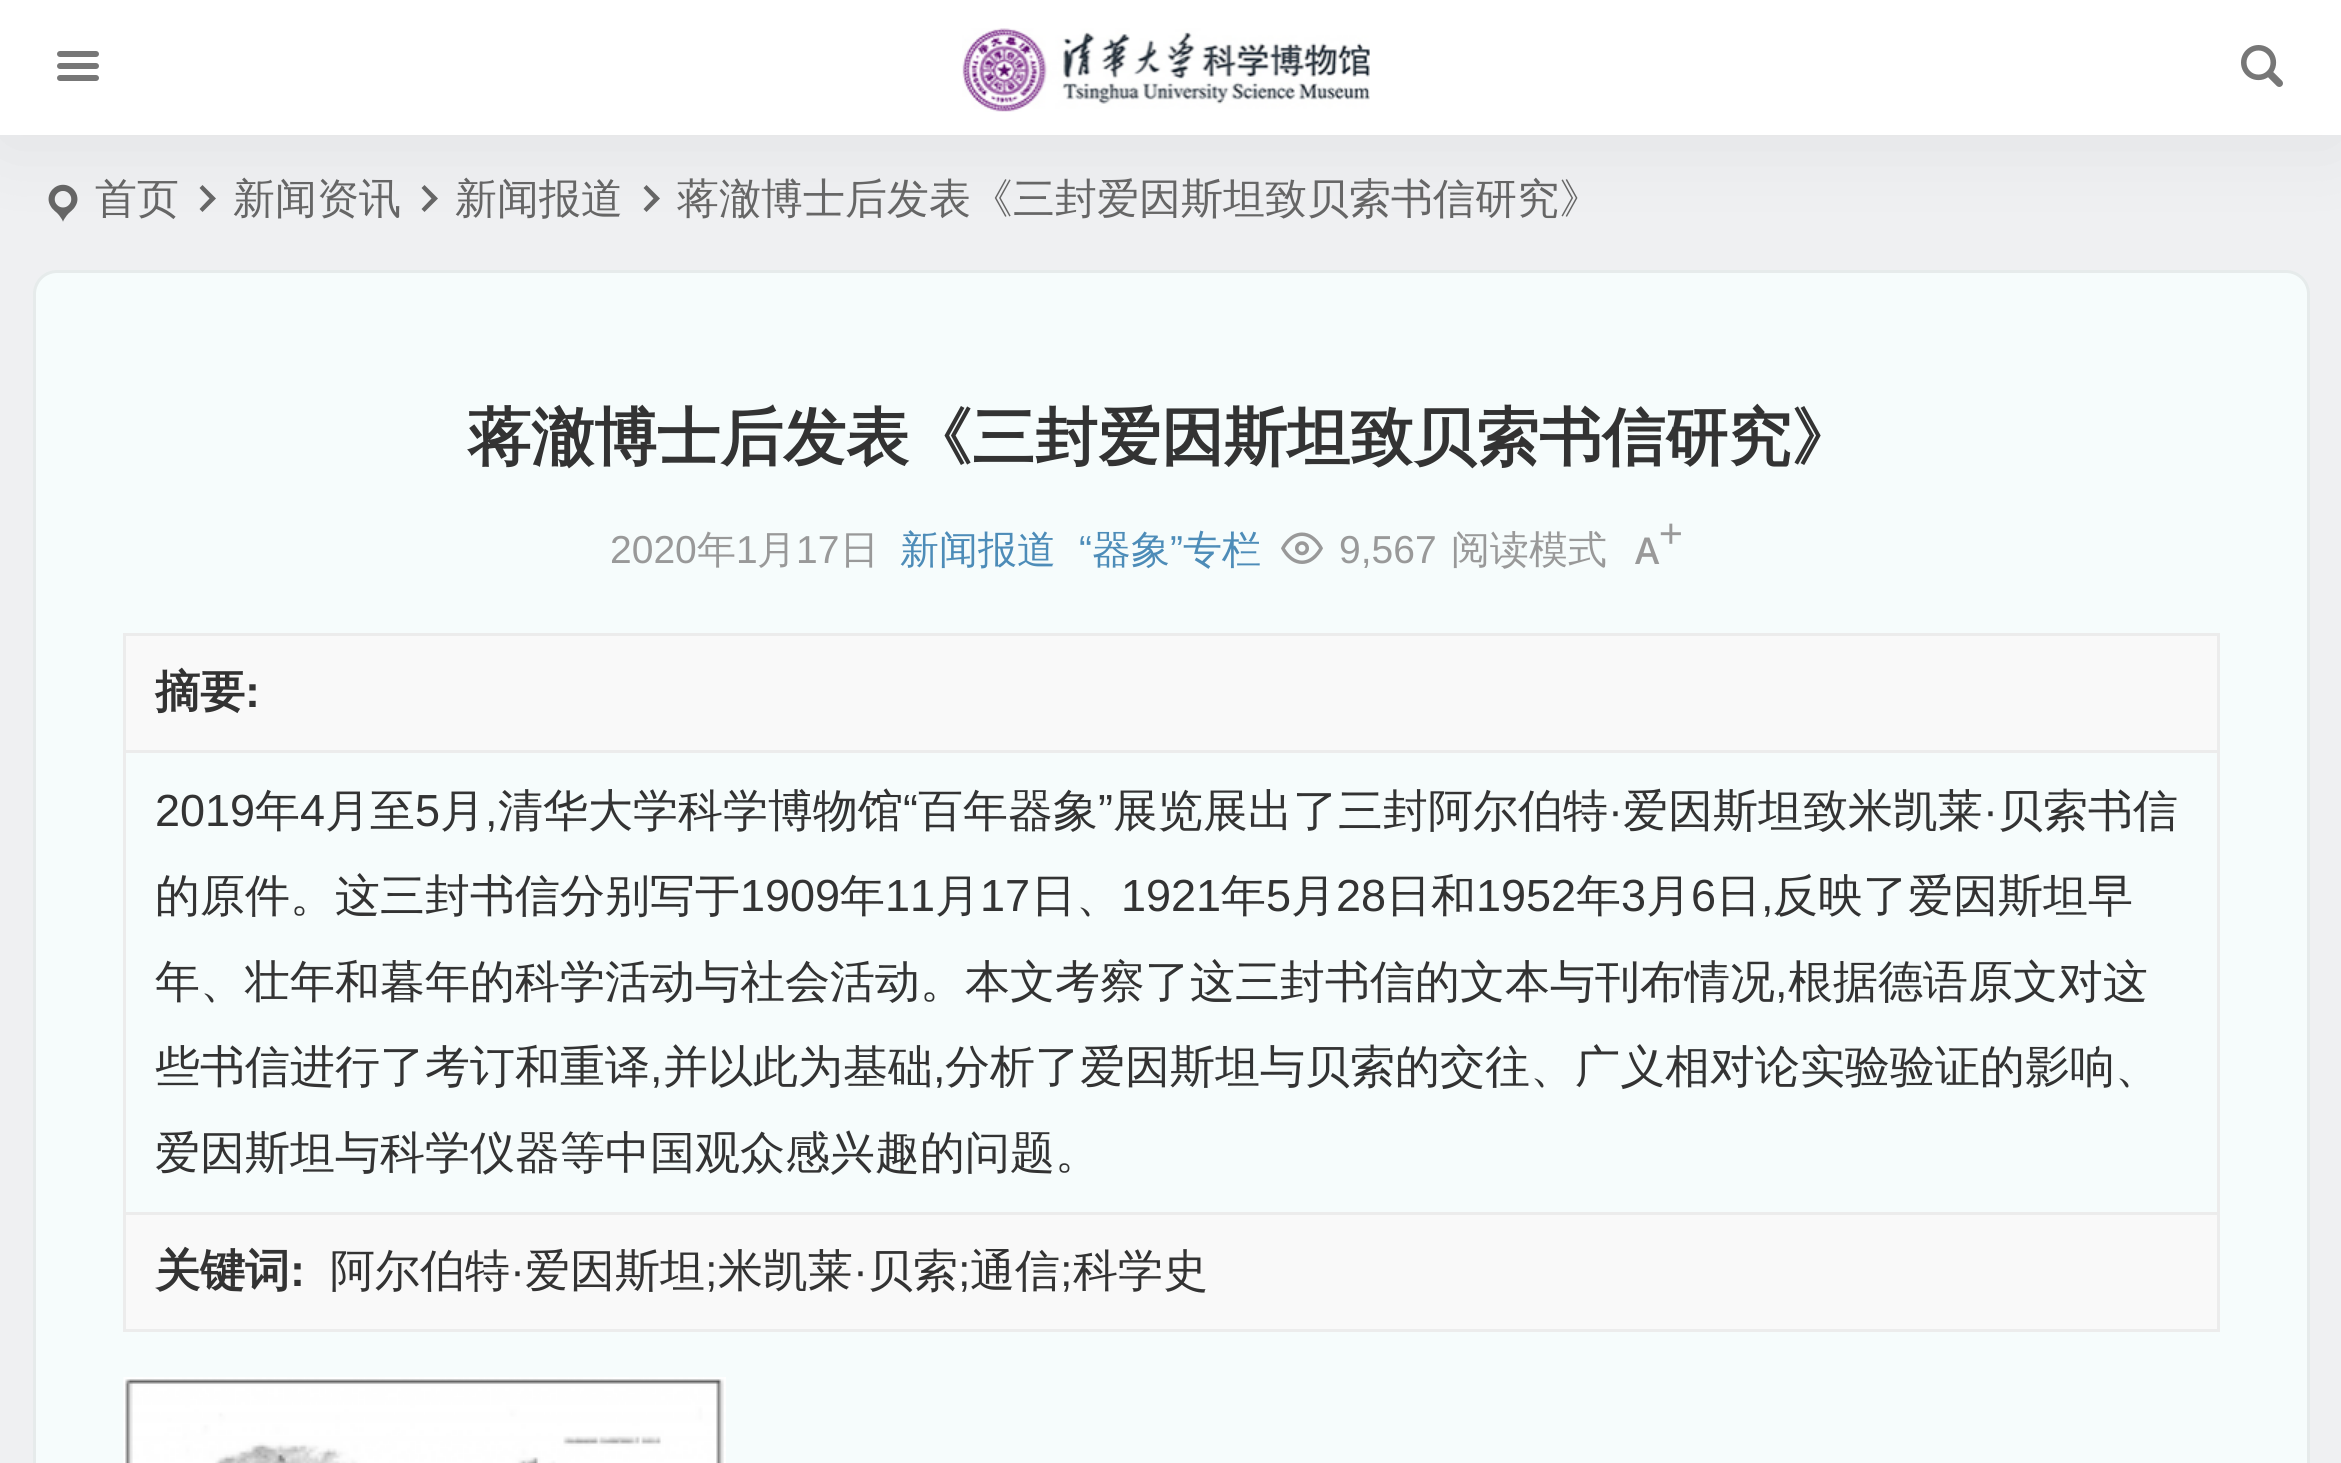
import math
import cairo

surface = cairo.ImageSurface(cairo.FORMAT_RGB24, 2341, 1463)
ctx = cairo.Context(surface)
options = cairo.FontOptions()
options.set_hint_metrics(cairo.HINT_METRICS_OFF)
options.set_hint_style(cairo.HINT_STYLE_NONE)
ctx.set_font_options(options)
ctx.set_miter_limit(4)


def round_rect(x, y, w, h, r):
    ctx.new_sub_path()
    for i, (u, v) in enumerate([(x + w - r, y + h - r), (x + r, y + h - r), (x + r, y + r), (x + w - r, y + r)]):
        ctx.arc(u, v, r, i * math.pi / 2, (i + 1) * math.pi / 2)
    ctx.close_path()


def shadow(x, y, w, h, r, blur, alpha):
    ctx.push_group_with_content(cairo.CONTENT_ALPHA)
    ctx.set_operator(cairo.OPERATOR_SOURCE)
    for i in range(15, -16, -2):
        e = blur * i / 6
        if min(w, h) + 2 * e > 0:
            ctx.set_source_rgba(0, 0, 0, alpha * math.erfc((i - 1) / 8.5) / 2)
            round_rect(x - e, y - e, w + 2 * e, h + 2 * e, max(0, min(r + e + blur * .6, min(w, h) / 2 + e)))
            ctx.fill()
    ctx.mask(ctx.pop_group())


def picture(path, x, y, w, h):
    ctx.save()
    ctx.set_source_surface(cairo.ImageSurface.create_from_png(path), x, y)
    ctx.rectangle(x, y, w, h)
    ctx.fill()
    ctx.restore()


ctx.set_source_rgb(0.937, 0.941, 0.949)
ctx.paint()
picture("img3.png", 48, 184, 30, 38)
ctx.set_source_rgb(0.4, 0.4, 0.4)
ctx.new_path()
ctx.move_to(199.5, 209)
ctx.line_to(209.5, 198.5)
ctx.line_to(199.5, 188)
ctx.line_to(202.5, 185)
ctx.line_to(216, 198.5)
ctx.line_to(202.5, 212)
ctx.close_path()
ctx.fill()
ctx.new_path()
ctx.move_to(421.5, 209)
ctx.line_to(431.5, 198.5)
ctx.line_to(421.5, 188)
ctx.line_to(424.5, 185)
ctx.line_to(438, 198.5)
ctx.line_to(424.5, 212)
ctx.close_path()
ctx.fill()
ctx.new_path()
ctx.move_to(643.5, 209)
ctx.line_to(653.5, 198.5)
ctx.line_to(643.5, 188)
ctx.line_to(646.5, 185)
ctx.line_to(660, 198.5)
ctx.line_to(646.5, 212)
ctx.close_path()
ctx.fill()
ctx.set_source_rgb(0.961, 0.988, 0.988)
round_rect(33, 270, 2277, 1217, 24)
ctx.fill()
round_rect(34.5, 271.5, 2274, 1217, 22.5)
ctx.set_source_rgba(0, 0, 0, 0.07)
ctx.set_line_width(3)
ctx.stroke()
ctx.set_source_rgb(0, 0, 0)
shadow(0, 9, 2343, 135, 0, 45, 0.06)
ctx.set_source_rgb(1, 1, 1)
ctx.rectangle(0, 0, 2341, 135)
ctx.fill()
ctx.set_source_rgb(0.467, 0.467, 0.467)
round_rect(57, 63, 42, 6, 3)
ctx.fill()
round_rect(57, 51, 42, 6, 3)
ctx.fill()
round_rect(57, 75, 42, 6, 3)
ctx.fill()
picture("img1.png", 962, 28, 408, 84)
picture("img2.png", 2241, 45, 42, 42)
ctx.select_font_face("WenQuanYi Zen Hei Medium")
ctx.set_font_size(42)
ctx.set_source_rgb(0.4, 0.4, 0.4)
ctx.move_to(95, 213)
ctx.show_text("首页")
ctx.move_to(233, 213)
ctx.show_text("新闻资讯")
ctx.move_to(455, 213)
ctx.show_text("新闻报道")
ctx.move_to(677, 213)
ctx.show_text("蒋澈博士后发表《三封爱因斯坦致贝索书信研究》")
ctx.select_font_face("WenQuanYi Zen Hei", cairo.FONT_SLANT_NORMAL, cairo.FONT_WEIGHT_BOLD)
ctx.set_font_size(63)
ctx.set_source_rgb(0.2, 0.2, 0.2)
ctx.move_to(468, 459)
ctx.show_text("蒋澈博士后发表《三封爱因斯坦致贝索书信研究》")
ctx.select_font_face("Liberation Sans")
ctx.set_font_size(39)
ctx.set_source_rgb(0.6, 0.6, 0.6)
ctx.move_to(610, 563)
ctx.show_text("2020")
ctx.select_font_face("WenQuanYi Zen Hei Medium")
ctx.move_to(697, 563)
ctx.show_text("年")
ctx.select_font_face("Liberation Sans")
ctx.move_to(736, 563)
ctx.show_text("1")
ctx.select_font_face("WenQuanYi Zen Hei Medium")
ctx.move_to(757, 563)
ctx.show_text("月")
ctx.select_font_face("Liberation Sans")
ctx.move_to(796, 563)
ctx.show_text("17")
ctx.select_font_face("WenQuanYi Zen Hei Medium")
ctx.move_to(840, 563)
ctx.show_text("日")
ctx.set_source_rgb(0.302, 0.549, 0.722)
ctx.move_to(900, 563)
ctx.show_text("新闻报道")
ctx.select_font_face("Liberation Sans")
ctx.move_to(1079, 563)
ctx.show_text("“")
ctx.select_font_face("WenQuanYi Zen Hei Medium")
ctx.move_to(1092, 563)
ctx.show_text("器象")
ctx.select_font_face("Liberation Sans")
ctx.move_to(1170, 563)
ctx.show_text("”")
ctx.select_font_face("WenQuanYi Zen Hei Medium")
ctx.move_to(1183, 563)
ctx.show_text("专栏")
picture("img4.png", 1281, 532, 42, 32)
ctx.select_font_face("Liberation Sans")
ctx.set_source_rgb(0.6, 0.6, 0.6)
ctx.move_to(1339, 563)
ctx.show_text("9,567")
ctx.select_font_face("WenQuanYi Zen Hei Medium")
ctx.move_to(1451, 563)
ctx.show_text("阅读模式")
picture("img5.png", 1660, 523, 21, 21)
picture("img6.png", 1635, 537, 25, 27)
ctx.set_source_rgb(0.925, 0.925, 0.925)
ctx.rectangle(123, 633, 2097, 3)
ctx.fill()
ctx.rectangle(123, 633, 3, 699)
ctx.fill()
ctx.set_source_rgb(0.976, 0.976, 0.976)
ctx.rectangle(126, 636, 2091, 114)
ctx.fill()
ctx.set_source_rgb(0.925, 0.925, 0.925)
ctx.rectangle(2217, 636, 3, 696)
ctx.fill()
ctx.rectangle(126, 750, 2094, 3)
ctx.fill()
ctx.select_font_face("WenQuanYi Zen Hei", cairo.FONT_SLANT_NORMAL, cairo.FONT_WEIGHT_BOLD)
ctx.set_font_size(45)
ctx.set_source_rgb(0.2, 0.2, 0.2)
ctx.move_to(155, 707)
ctx.show_text("摘要")
ctx.select_font_face("Liberation Sans", cairo.FONT_SLANT_NORMAL, cairo.FONT_WEIGHT_BOLD)
ctx.move_to(245, 707)
ctx.show_text(":")
ctx.set_source_rgb(0.925, 0.925, 0.925)
ctx.rectangle(126, 1212, 2094, 3)
ctx.fill()
ctx.select_font_face("Liberation Sans")
ctx.set_source_rgb(0.2, 0.2, 0.2)
ctx.move_to(155, 826)
ctx.show_text("2019")
ctx.select_font_face("WenQuanYi Zen Hei Medium")
ctx.move_to(255, 826)
ctx.show_text("年")
ctx.select_font_face("Liberation Sans")
ctx.move_to(300, 826)
ctx.show_text("4")
ctx.select_font_face("WenQuanYi Zen Hei Medium")
ctx.move_to(325, 826)
ctx.show_text("月至")
ctx.select_font_face("Liberation Sans")
ctx.move_to(415, 826)
ctx.show_text("5")
ctx.select_font_face("WenQuanYi Zen Hei Medium")
ctx.move_to(440, 826)
ctx.show_text("月")
ctx.move_to(498, 826)
ctx.show_text("清华大学科学博物馆")
ctx.select_font_face("Liberation Sans")
ctx.move_to(903, 826)
ctx.show_text("“")
ctx.select_font_face("WenQuanYi Zen Hei Medium")
ctx.move_to(918, 826)
ctx.show_text("百年器象")
ctx.select_font_face("Liberation Sans")
ctx.move_to(1098, 826)
ctx.show_text("”")
ctx.select_font_face("WenQuanYi Zen Hei Medium")
ctx.move_to(1113, 826)
ctx.show_text("展览展出了三封阿尔伯特")
ctx.move_to(1623, 826)
ctx.show_text("爱因斯坦致米凯莱")
ctx.move_to(1998, 826)
ctx.show_text("贝索书信")
ctx.select_font_face("Liberation Sans")
ctx.move_to(1608, 826)
ctx.show_text("·")
ctx.move_to(1983, 826)
ctx.show_text("·")
ctx.move_to(485, 826)
ctx.show_text(",")
ctx.select_font_face("WenQuanYi Zen Hei Medium")
ctx.move_to(155, 911)
ctx.show_text("的原件。这三封书信分别写于")
ctx.select_font_face("Liberation Sans")
ctx.move_to(740, 911)
ctx.show_text("1909")
ctx.select_font_face("WenQuanYi Zen Hei Medium")
ctx.move_to(840, 911)
ctx.show_text("年")
ctx.select_font_face("Liberation Sans")
ctx.move_to(885, 911)
ctx.show_text("11")
ctx.select_font_face("WenQuanYi Zen Hei Medium")
ctx.move_to(935, 911)
ctx.show_text("月")
ctx.select_font_face("Liberation Sans")
ctx.move_to(980, 911)
ctx.show_text("17")
ctx.select_font_face("WenQuanYi Zen Hei Medium")
ctx.move_to(1031, 911)
ctx.show_text("日、")
ctx.select_font_face("Liberation Sans")
ctx.move_to(1121, 911)
ctx.show_text("1921")
ctx.select_font_face("WenQuanYi Zen Hei Medium")
ctx.move_to(1221, 911)
ctx.show_text("年")
ctx.select_font_face("Liberation Sans")
ctx.move_to(1266, 911)
ctx.show_text("5")
ctx.select_font_face("WenQuanYi Zen Hei Medium")
ctx.move_to(1291, 911)
ctx.show_text("月")
ctx.select_font_face("Liberation Sans")
ctx.move_to(1336, 911)
ctx.show_text("28")
ctx.select_font_face("WenQuanYi Zen Hei Medium")
ctx.move_to(1386, 911)
ctx.show_text("日和")
ctx.select_font_face("Liberation Sans")
ctx.move_to(1476, 911)
ctx.show_text("1952")
ctx.select_font_face("WenQuanYi Zen Hei Medium")
ctx.move_to(1576, 911)
ctx.show_text("年")
ctx.select_font_face("Liberation Sans")
ctx.move_to(1621, 911)
ctx.show_text("3")
ctx.select_font_face("WenQuanYi Zen Hei Medium")
ctx.move_to(1646, 911)
ctx.show_text("月")
ctx.select_font_face("Liberation Sans")
ctx.move_to(1691, 911)
ctx.show_text("6")
ctx.select_font_face("WenQuanYi Zen Hei Medium")
ctx.move_to(1716, 911)
ctx.show_text("日")
ctx.select_font_face("Liberation Sans")
ctx.move_to(1761, 911)
ctx.show_text(",")
ctx.select_font_face("WenQuanYi Zen Hei Medium")
ctx.move_to(1773, 911)
ctx.show_text("反映了爱因斯坦早")
ctx.move_to(155, 997)
ctx.show_text("年、壮年和暮年的科学活动与社会活动。本文考察了这三封书信的文本与刊布情况")
ctx.select_font_face("Liberation Sans")
ctx.move_to(1775, 997)
ctx.show_text(",")
ctx.select_font_face("WenQuanYi Zen Hei Medium")
ctx.move_to(1788, 997)
ctx.show_text("根据德语原文对这")
ctx.move_to(155, 1082)
ctx.show_text("些书信进行了考订和重译")
ctx.select_font_face("Liberation Sans")
ctx.move_to(650, 1082)
ctx.show_text(",")
ctx.select_font_face("WenQuanYi Zen Hei Medium")
ctx.move_to(663, 1082)
ctx.show_text("并以此为基础")
ctx.select_font_face("Liberation Sans")
ctx.move_to(933, 1082)
ctx.show_text(",")
ctx.select_font_face("WenQuanYi Zen Hei Medium")
ctx.move_to(945, 1082)
ctx.show_text("分析了爱因斯坦与贝索的交往、广义相对论实验验证的影响、")
ctx.move_to(155, 1168)
ctx.show_text("爱因斯坦与科学仪器等中国观众感兴趣的问题。")
ctx.set_source_rgb(0.976, 0.976, 0.976)
ctx.rectangle(126, 1215, 2091, 114)
ctx.fill()
ctx.set_source_rgb(0.925, 0.925, 0.925)
ctx.rectangle(126, 1329, 2094, 3)
ctx.fill()
ctx.select_font_face("WenQuanYi Zen Hei", cairo.FONT_SLANT_NORMAL, cairo.FONT_WEIGHT_BOLD)
ctx.set_source_rgb(0.2, 0.2, 0.2)
ctx.move_to(155, 1286)
ctx.show_text("关键词")
ctx.select_font_face("Liberation Sans", cairo.FONT_SLANT_NORMAL, cairo.FONT_WEIGHT_BOLD)
ctx.move_to(290, 1286)
ctx.show_text(":")
ctx.select_font_face("WenQuanYi Zen Hei Medium")
ctx.move_to(330, 1286)
ctx.show_text("阿尔伯特")
ctx.select_font_face("Liberation Sans")
ctx.move_to(510, 1286)
ctx.show_text("·")
ctx.select_font_face("WenQuanYi Zen Hei Medium")
ctx.move_to(525, 1286)
ctx.show_text("爱因斯坦")
ctx.select_font_face("Liberation Sans")
ctx.move_to(705, 1286)
ctx.show_text(";")
ctx.select_font_face("WenQuanYi Zen Hei Medium")
ctx.move_to(718, 1286)
ctx.show_text("米凯莱")
ctx.select_font_face("Liberation Sans")
ctx.move_to(853, 1286)
ctx.show_text("·")
ctx.select_font_face("WenQuanYi Zen Hei Medium")
ctx.move_to(868, 1286)
ctx.show_text("贝索")
ctx.select_font_face("Liberation Sans")
ctx.move_to(958, 1286)
ctx.show_text(";")
ctx.select_font_face("WenQuanYi Zen Hei Medium")
ctx.move_to(970, 1286)
ctx.show_text("通信")
ctx.select_font_face("Liberation Sans")
ctx.move_to(1060, 1286)
ctx.show_text(";")
ctx.select_font_face("WenQuanYi Zen Hei Medium")
ctx.move_to(1073, 1286)
ctx.show_text("科学史")
picture("img7.png", 123, 1377, 603, 86)
surface.write_to_png("page.png")
